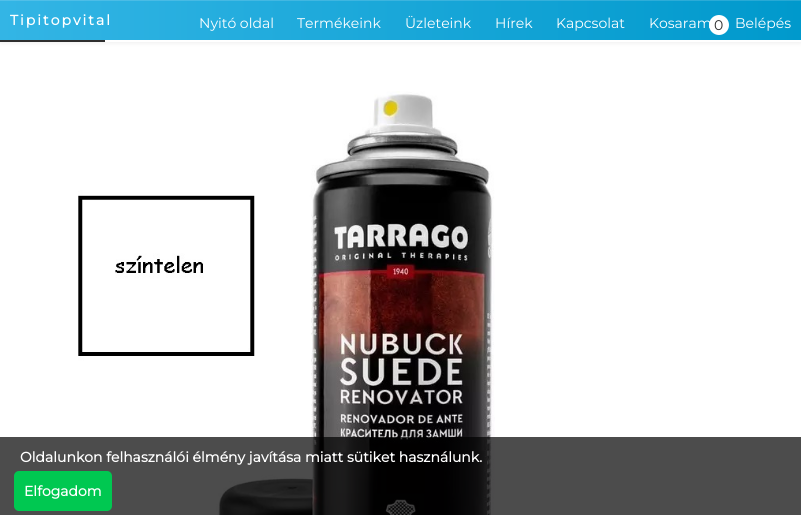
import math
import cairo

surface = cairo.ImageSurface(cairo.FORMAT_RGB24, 801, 515)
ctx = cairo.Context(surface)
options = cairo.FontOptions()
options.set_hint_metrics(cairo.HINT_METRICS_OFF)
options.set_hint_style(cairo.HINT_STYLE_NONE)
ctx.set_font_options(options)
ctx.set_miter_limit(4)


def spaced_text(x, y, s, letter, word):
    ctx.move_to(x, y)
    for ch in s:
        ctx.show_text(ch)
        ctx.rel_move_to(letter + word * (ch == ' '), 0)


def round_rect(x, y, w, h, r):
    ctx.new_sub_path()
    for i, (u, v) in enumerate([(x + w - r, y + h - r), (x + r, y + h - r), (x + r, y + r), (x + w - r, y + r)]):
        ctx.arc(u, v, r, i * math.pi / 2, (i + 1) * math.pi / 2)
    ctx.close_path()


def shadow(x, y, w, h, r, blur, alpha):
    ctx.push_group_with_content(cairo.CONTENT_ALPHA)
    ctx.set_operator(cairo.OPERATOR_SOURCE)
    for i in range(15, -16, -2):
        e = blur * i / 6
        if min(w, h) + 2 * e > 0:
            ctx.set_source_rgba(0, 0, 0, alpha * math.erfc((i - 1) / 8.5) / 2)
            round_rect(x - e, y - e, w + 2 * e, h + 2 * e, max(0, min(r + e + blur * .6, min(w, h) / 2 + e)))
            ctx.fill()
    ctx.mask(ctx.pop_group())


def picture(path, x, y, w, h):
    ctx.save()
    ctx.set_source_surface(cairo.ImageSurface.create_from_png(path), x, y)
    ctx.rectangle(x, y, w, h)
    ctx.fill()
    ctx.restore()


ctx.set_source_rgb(1, 1, 1)
ctx.paint()
ctx.set_source_rgb(0, 0, 0)
shadow(0, 1, 801, 42, 0, 2.5, 0.07)
gradient = cairo.LinearGradient(0, 20, 801, 20)
gradient.add_color_stop_rgba(0, 0.2, 0.71, 0.898, 1)
gradient.add_color_stop_rgba(1, 0, 0.6, 0.8, 1)
ctx.set_source(gradient)
ctx.rectangle(0, 1, 801, 39)
ctx.fill()
gradient = cairo.LinearGradient(0, 20, 801, 20)
gradient.add_color_stop_rgba(0, 0.322, 0.753, 0.914, 1)
gradient.add_color_stop_rgba(1, 0.149, 0.659, 0.831, 1)
ctx.set_source(gradient)
ctx.rectangle(0, 0, 801, 1)
ctx.fill()
ctx.set_source_rgb(1, 1, 1)
ctx.rectangle(105, 40, 696, 2)
ctx.fill()
ctx.select_font_face("Montserrat", cairo.FONT_SLANT_NORMAL, cairo.FONT_WEIGHT_BOLD)
ctx.set_font_size(14)
spaced_text(10, 25, "Tipitopvital", 2, 0)
ctx.select_font_face("Montserrat Thin")
ctx.move_to(199, 28)
ctx.show_text("Nyitó oldal")
ctx.move_to(297, 28)
ctx.show_text("Termékeink")
ctx.move_to(405, 28)
ctx.show_text("Üzleteink")
ctx.move_to(495, 28)
ctx.show_text("Hírek")
ctx.move_to(556, 28)
ctx.show_text("Kapcsolat")
ctx.move_to(649, 28)
ctx.show_text("Kosaram")
ctx.new_path()
ctx.arc(719, 25, 10, 0, 2 * math.pi)
ctx.fill()
ctx.set_source_rgb(0.18, 0.18, 0.18)
ctx.move_to(714, 30)
ctx.show_text("0")
ctx.set_source_rgb(1, 1, 1)
ctx.move_to(735, 28)
ctx.show_text("Belépés")
ctx.set_source_rgb(0.18, 0.18, 0.18)
ctx.rectangle(0, 40, 105, 2)
ctx.fill()
picture("img1.png", 78, 91, 417, 424)
ctx.set_source_rgba(0, 0, 0, 0.7)
ctx.rectangle(0, 437, 801, 78)
ctx.fill()
ctx.select_font_face("Montserrat", cairo.FONT_SLANT_NORMAL, cairo.FONT_WEIGHT_BOLD)
ctx.set_source_rgb(1, 1, 1)
ctx.move_to(20, 462)
ctx.show_text("Oldalunkon felhasználói élmény javítása miatt sütiket használunk.")
ctx.set_source_rgb(0, 0.784, 0.318)
round_rect(14, 471, 98, 40, 5)
ctx.fill()
ctx.set_source_rgb(1, 1, 1)
ctx.move_to(24, 496)
ctx.show_text("Elfogadom")
surface.write_to_png("page.png")
